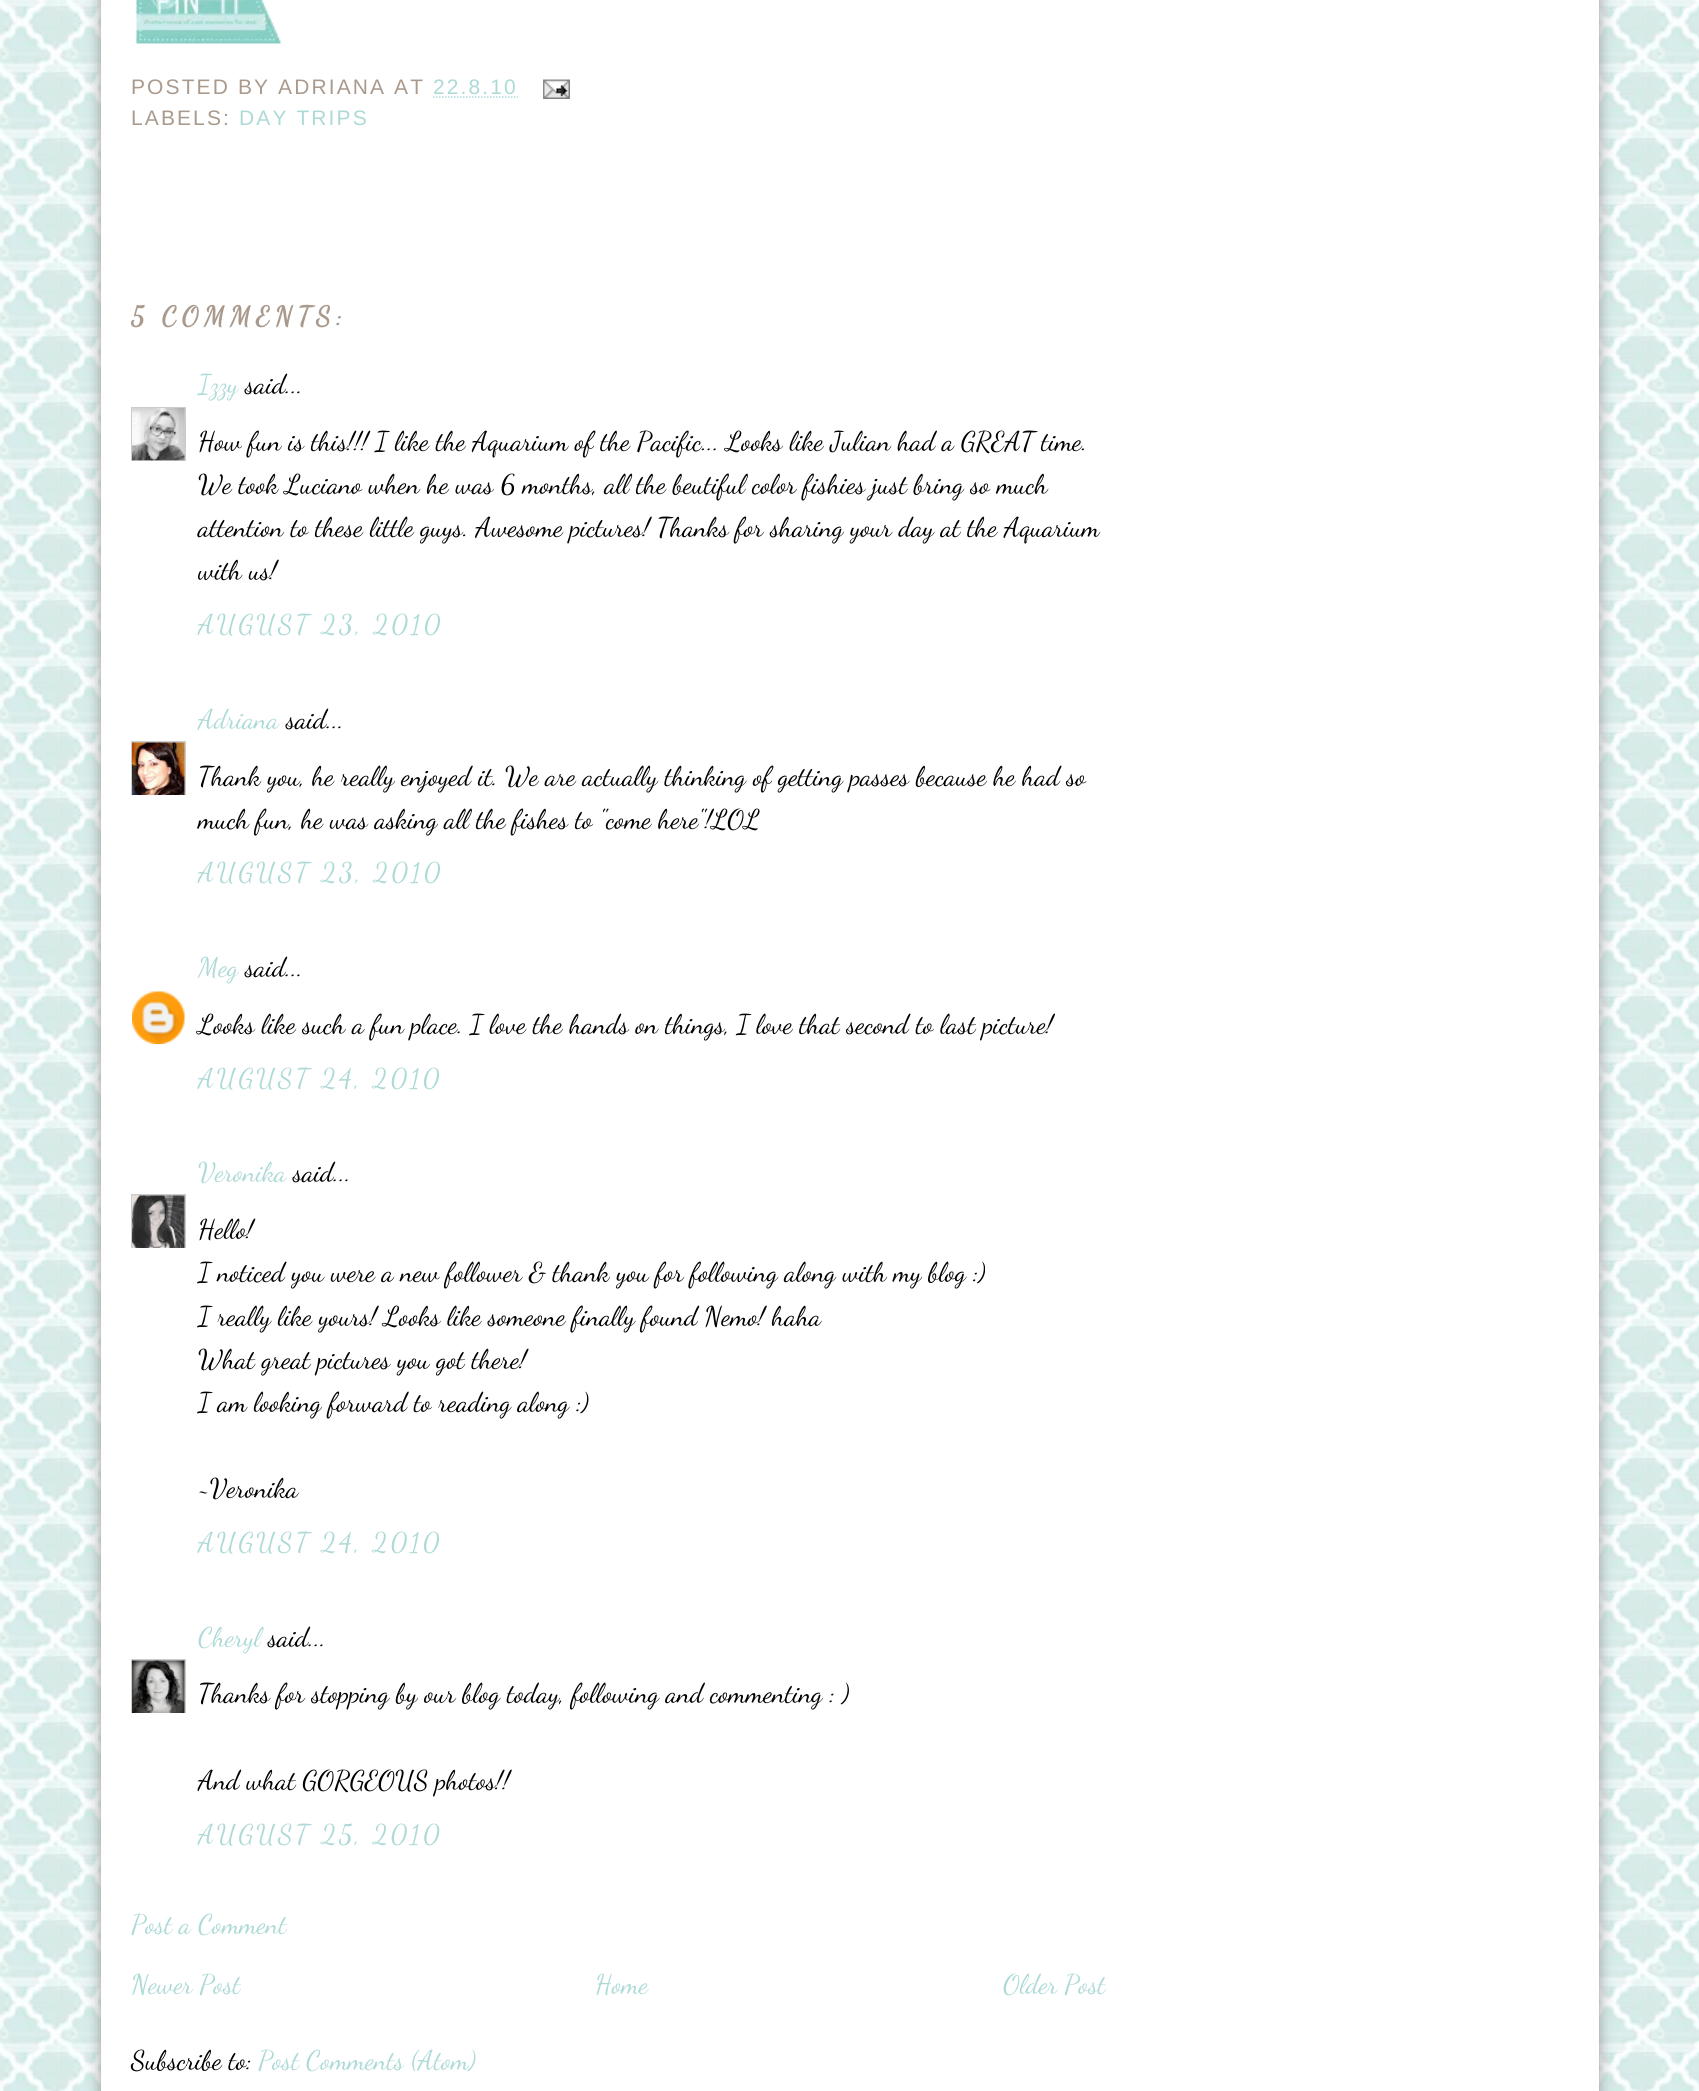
import math
import cairo

surface = cairo.ImageSurface(cairo.FORMAT_RGB24, 1699, 2091)
ctx = cairo.Context(surface)
options = cairo.FontOptions()
options.set_hint_metrics(cairo.HINT_METRICS_OFF)
options.set_hint_style(cairo.HINT_STYLE_NONE)
ctx.set_font_options(options)
ctx.set_miter_limit(4)


def spaced_text(x, y, s, letter, word):
    ctx.move_to(x, y)
    for ch in s:
        ctx.show_text(ch)
        ctx.rel_move_to(letter + word * (ch == ' '), 0)


def round_rect(x, y, w, h, r):
    ctx.new_sub_path()
    for i, (u, v) in enumerate([(x + w - r, y + h - r), (x + r, y + h - r), (x + r, y + r), (x + w - r, y + r)]):
        ctx.arc(u, v, r, i * math.pi / 2, (i + 1) * math.pi / 2)
    ctx.close_path()


def shadow(x, y, w, h, r, blur, alpha):
    ctx.push_group_with_content(cairo.CONTENT_ALPHA)
    ctx.set_operator(cairo.OPERATOR_SOURCE)
    for i in range(15, -16, -2):
        e = blur * i / 6
        if min(w, h) + 2 * e > 0:
            ctx.set_source_rgba(0, 0, 0, alpha * math.erfc((i - 1) / 8.5) / 2)
            round_rect(x - e, y - e, w + 2 * e, h + 2 * e, max(0, min(r + e + blur * .6, min(w, h) / 2 + e)))
            ctx.fill()
    ctx.mask(ctx.pop_group())


def picture(path, x, y, w, h):
    ctx.save()
    ctx.set_source_surface(cairo.ImageSurface.create_from_png(path), x, y)
    ctx.rectangle(x, y, w, h)
    ctx.fill()
    ctx.restore()


ctx.set_source_rgb(1, 1, 1)
ctx.paint()
picture("img1.png", 0, 0, 1699, 2091)
ctx.set_source_rgb(0.588, 0.588, 0.588)
shadow(101, -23, 1498, 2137, 0, 7.5, 1)
ctx.set_source_rgb(1, 1, 1)
ctx.rectangle(101, 0, 1498, 2091)
ctx.fill()
picture("img2.png", 136, 0, 145, 44)
ctx.select_font_face("Liberation Sans")
ctx.set_font_size(21)
ctx.set_source_rgb(0.663, 0.604, 0.553)
spaced_text(131, 94, "POSTED BY ADRIANA AT", 2.1, 0)
ctx.set_source_rgb(0.678, 0.855, 0.843)
spaced_text(433, 94, "22.8.10", 2.1, 0)
ctx.new_path()
ctx.move_to(433, 97)
ctx.line_to(518, 97)
ctx.set_line_width(1.5)
ctx.set_dash([1.5, 1.5])
ctx.stroke()
picture("img3.png", 543, 79, 27, 20)
ctx.set_source_rgb(0.663, 0.604, 0.553)
spaced_text(131, 125, "LABELS:", 2.1, 0)
ctx.set_source_rgb(0.678, 0.855, 0.843)
spaced_text(239, 125, "DAY TRIPS", 2.1, 0)
ctx.select_font_face("Dancing Script", cairo.FONT_SLANT_NORMAL, cairo.FONT_WEIGHT_BOLD)
ctx.set_font_size(27)
ctx.set_source_rgb(0.663, 0.604, 0.553)
spaced_text(131, 325, "5 COMMENTS:", 5.4, 0)
ctx.select_font_face("Dancing Script")
ctx.set_source_rgb(0.678, 0.855, 0.843)
ctx.move_to(198, 393)
ctx.show_text("Izzy")
ctx.set_source_rgb(0, 0, 0)
ctx.move_to(245, 393)
ctx.show_text("said...")
ctx.save()
ctx.rectangle(131, 407, 55, 54)
ctx.clip()
ctx.rectangle(132, 408, 53, 53)
ctx.set_source_rgb(0.8, 0.8, 0.8)
ctx.set_line_width(2)
ctx.set_dash([])
ctx.stroke()
ctx.restore()
picture("img4.png", 132, 408, 53, 53)
ctx.move_to(198, 450)
ctx.show_text("How fun is this!!! I like the Aquarium of the Pacific... Looks like Julian had a GREAT time.")
ctx.move_to(198, 493)
ctx.show_text("We took Luciano when he was 6 months, all the beutiful color fishies just bring so much")
ctx.move_to(198, 536)
ctx.show_text("attention to these little guys. Awesome pictures! Thanks for sharing your day at the Aquarium")
ctx.move_to(198, 579)
ctx.show_text("with us!")
ctx.set_source_rgb(0.678, 0.855, 0.843)
spaced_text(198, 633, "AUGUST 23, 2010", 2.75, 0)
ctx.move_to(198, 728)
ctx.show_text("Adriana")
ctx.set_source_rgb(0, 0, 0)
ctx.move_to(286, 728)
ctx.show_text("said...")
ctx.save()
ctx.rectangle(131, 741, 55, 54)
ctx.clip()
ctx.rectangle(132, 742, 53, 54)
ctx.set_source_rgb(0.8, 0.8, 0.8)
ctx.set_line_width(2)
ctx.set_dash([])
ctx.stroke()
ctx.restore()
picture("img5.png", 132, 742, 53, 53)
ctx.move_to(198, 785)
ctx.show_text("Thank you, he really enjoyed it. We are actually thinking of getting passes because he had so")
ctx.move_to(198, 828)
ctx.show_text("much fun, he was asking all the fishes to \"come here\"!LOL")
ctx.set_source_rgb(0.678, 0.855, 0.843)
spaced_text(198, 881, "AUGUST 23, 2010", 2.75, 0)
ctx.move_to(198, 976)
ctx.show_text("Meg")
ctx.set_source_rgb(0, 0, 0)
ctx.move_to(245, 976)
ctx.show_text("said...")
picture("img6.png", 132, 991, 53, 53)
ctx.move_to(198, 1033)
ctx.show_text("Looks like such a fun place. I love the hands on things, I love that second to last picture!")
ctx.set_source_rgb(0.678, 0.855, 0.843)
spaced_text(198, 1087, "AUGUST 24, 2010", 2.75, 0)
ctx.move_to(198, 1181)
ctx.show_text("Veronika")
ctx.set_source_rgb(0, 0, 0)
ctx.move_to(293, 1181)
ctx.show_text("said...")
ctx.save()
ctx.rectangle(131, 1194, 55, 54)
ctx.clip()
ctx.rectangle(132, 1195, 53, 54)
ctx.set_source_rgb(0.8, 0.8, 0.8)
ctx.set_line_width(2)
ctx.set_dash([])
ctx.stroke()
ctx.restore()
picture("img7.png", 132, 1195, 53, 53)
ctx.move_to(198, 1238)
ctx.show_text("Hello!")
ctx.move_to(198, 1281)
ctx.show_text("I noticed you were a new follower & thank you for following along with my blog :)")
ctx.move_to(198, 1325)
ctx.show_text("I really like yours! Looks like someone finally found Nemo! haha")
ctx.move_to(198, 1368)
ctx.show_text("What great pictures you got there!")
ctx.move_to(198, 1411)
ctx.show_text("I am looking forward to reading along :)")
ctx.move_to(198, 1497)
ctx.show_text("~Veronika")
ctx.set_source_rgb(0.678, 0.855, 0.843)
spaced_text(198, 1551, "AUGUST 24, 2010", 2.75, 0)
ctx.move_to(198, 1646)
ctx.show_text("Cheryl")
ctx.set_source_rgb(0, 0, 0)
ctx.move_to(268, 1646)
ctx.show_text("said...")
ctx.save()
ctx.rectangle(131, 1659, 55, 54)
ctx.clip()
ctx.rectangle(132, 1660, 53, 54)
ctx.set_source_rgb(0.8, 0.8, 0.8)
ctx.set_line_width(2)
ctx.set_dash([])
ctx.stroke()
ctx.restore()
picture("img8.png", 132, 1660, 53, 53)
ctx.move_to(198, 1702)
ctx.show_text("Thanks for stopping by our blog today, following and commenting : )")
ctx.move_to(198, 1789)
ctx.show_text("And what GORGEOUS photos!!")
ctx.set_source_rgb(0.678, 0.855, 0.843)
spaced_text(198, 1843, "AUGUST 25, 2010", 2.75, 0)
ctx.move_to(131, 1933)
ctx.show_text("Post a Comment")
ctx.move_to(131, 1993)
ctx.show_text("Newer Post")
ctx.move_to(595, 1993)
ctx.show_text("Home")
ctx.move_to(1003, 1993)
ctx.show_text("Older Post")
ctx.set_source_rgb(0, 0, 0)
ctx.move_to(131, 2069)
ctx.show_text("Subscribe to:")
ctx.set_source_rgb(0.678, 0.855, 0.843)
ctx.move_to(258, 2069)
ctx.show_text("Post Comments (Atom)")
surface.write_to_png("page.png")
